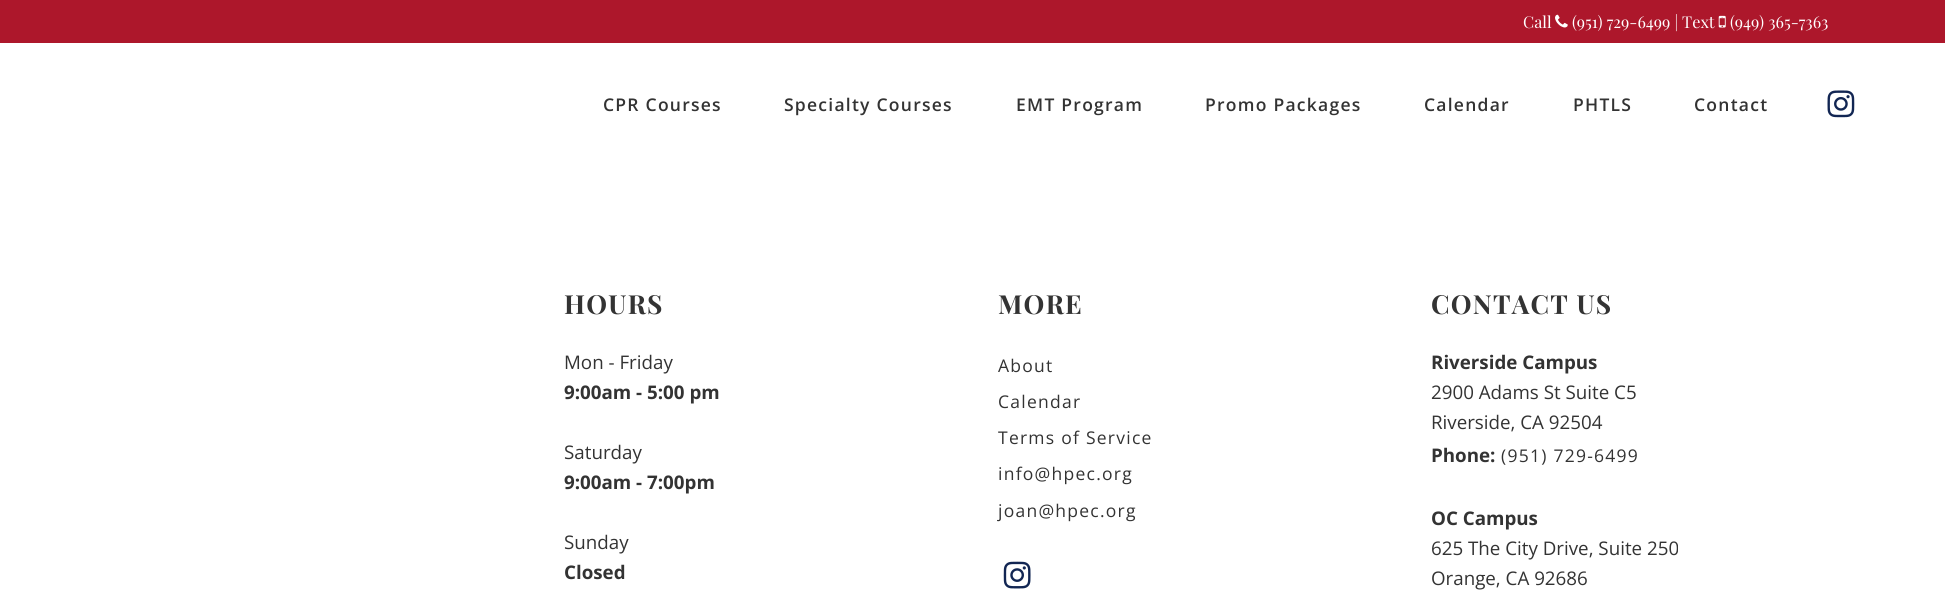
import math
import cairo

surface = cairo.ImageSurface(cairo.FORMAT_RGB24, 1945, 604)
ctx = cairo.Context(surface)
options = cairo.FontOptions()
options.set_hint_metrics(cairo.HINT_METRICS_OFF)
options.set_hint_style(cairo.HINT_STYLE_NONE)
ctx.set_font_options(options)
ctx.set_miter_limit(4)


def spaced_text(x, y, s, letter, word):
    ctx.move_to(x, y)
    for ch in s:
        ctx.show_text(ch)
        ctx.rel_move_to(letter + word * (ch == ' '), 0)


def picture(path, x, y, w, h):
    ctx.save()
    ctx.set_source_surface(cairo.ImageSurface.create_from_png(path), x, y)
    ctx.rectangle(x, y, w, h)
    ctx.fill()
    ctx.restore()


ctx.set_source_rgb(1, 1, 1)
ctx.paint()
ctx.set_source_rgb(0.678, 0.09, 0.169)
ctx.rectangle(0, 0, 1945, 43)
ctx.fill()
ctx.select_font_face("Playfair Display")
ctx.set_font_size(16.25)
ctx.set_source_rgb(1, 1, 1)
ctx.move_to(1523, 28)
ctx.show_text("Call")
picture("img1.png", 1555, 14, 13, 14)
ctx.move_to(1572, 28)
ctx.show_text("(951) 729-6499 | Text")
picture("img2.png", 1718, 15, 8, 13)
ctx.move_to(1730, 28)
ctx.show_text("(949) 365-7363")
ctx.select_font_face("Open Sans SemiBold")
ctx.set_font_size(17.5)
ctx.set_source_rgb(0.2, 0.2, 0.2)
spaced_text(603, 111, "CPR Courses", 1.25, 0)
spaced_text(784, 111, "Specialty Courses", 1.25, 0)
spaced_text(1016, 111, "EMT Program", 1.25, 0)
spaced_text(1205, 111, "Promo Packages", 1.25, 0)
spaced_text(1424, 111, "Calendar", 1.25, 0)
spaced_text(1573, 111, "PHTLS", 1.25, 0)
spaced_text(1694, 111, "Contact", 1.25, 0)
picture("img3.png", 1827, 90, 28, 28)
ctx.select_font_face("Playfair Display", cairo.FONT_SLANT_NORMAL, cairo.FONT_WEIGHT_BOLD)
ctx.set_font_size(26.25)
spaced_text(564, 314, "HOURS", 1.25, 0)
ctx.select_font_face("Open Sans")
ctx.set_font_size(18.75)
ctx.move_to(564, 369)
ctx.show_text("Mon - Friday")
ctx.select_font_face("Open Sans", cairo.FONT_SLANT_NORMAL, cairo.FONT_WEIGHT_BOLD)
ctx.move_to(564, 399)
ctx.show_text("9:00am - 5:00 pm")
ctx.select_font_face("Open Sans")
ctx.move_to(564, 459)
ctx.show_text("Saturday")
ctx.select_font_face("Open Sans", cairo.FONT_SLANT_NORMAL, cairo.FONT_WEIGHT_BOLD)
ctx.move_to(564, 489)
ctx.show_text("9:00am - 7:00pm")
ctx.select_font_face("Open Sans")
ctx.move_to(564, 549)
ctx.show_text("Sunday")
ctx.select_font_face("Open Sans", cairo.FONT_SLANT_NORMAL, cairo.FONT_WEIGHT_BOLD)
ctx.move_to(564, 579)
ctx.show_text("Closed")
ctx.select_font_face("Playfair Display", cairo.FONT_SLANT_NORMAL, cairo.FONT_WEIGHT_BOLD)
ctx.set_font_size(26.25)
spaced_text(998, 314, "MORE", 1.25, 0)
ctx.select_font_face("Open Sans")
ctx.set_font_size(17.5)
spaced_text(998, 372, "About", 1.25, 0)
spaced_text(998, 408, "Calendar", 1.25, 0)
spaced_text(998, 444, "Terms of Service", 1.25, 0)
spaced_text(998, 480, "info@hpec.org", 1.25, 0)
spaced_text(998, 517, "joan@hpec.org", 1.25, 0)
picture("img4.png", 1003, 561, 28, 28)
ctx.select_font_face("Playfair Display", cairo.FONT_SLANT_NORMAL, cairo.FONT_WEIGHT_BOLD)
ctx.set_font_size(26.25)
spaced_text(1431, 314, "CONTACT US", 1.25, 0)
ctx.select_font_face("Open Sans", cairo.FONT_SLANT_NORMAL, cairo.FONT_WEIGHT_BOLD)
ctx.set_font_size(18.75)
ctx.move_to(1431, 369)
ctx.show_text("Riverside Campus")
ctx.select_font_face("Open Sans")
ctx.move_to(1431, 399)
ctx.show_text("2900 Adams St Suite C5")
ctx.move_to(1431, 429)
ctx.show_text("Riverside, CA 92504")
ctx.select_font_face("Open Sans", cairo.FONT_SLANT_NORMAL, cairo.FONT_WEIGHT_BOLD)
ctx.move_to(1431, 462)
ctx.show_text("Phone:")
ctx.select_font_face("Open Sans")
ctx.set_font_size(17.5)
spaced_text(1501, 462, "(951) 729-6499", 1.25, 0)
ctx.select_font_face("Open Sans", cairo.FONT_SLANT_NORMAL, cairo.FONT_WEIGHT_BOLD)
ctx.set_font_size(18.75)
ctx.move_to(1431, 525)
ctx.show_text("OC Campus")
ctx.select_font_face("Open Sans")
ctx.move_to(1431, 555)
ctx.show_text("625 The City Drive, Suite 250")
ctx.move_to(1431, 585)
ctx.show_text("Orange, CA 92686")
surface.write_to_png("page.png")
